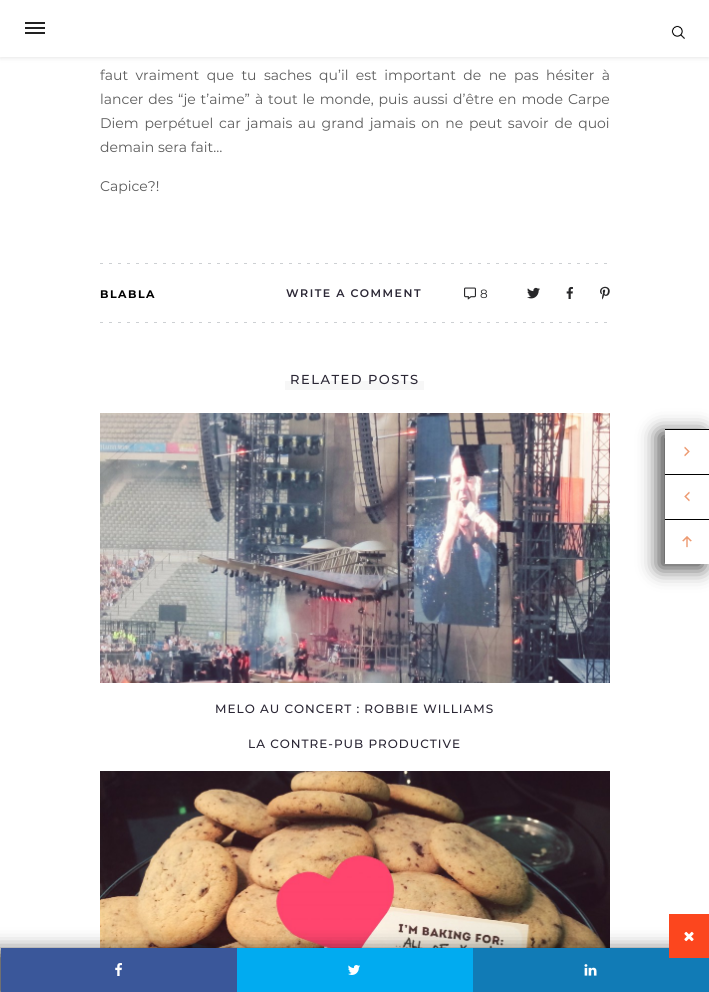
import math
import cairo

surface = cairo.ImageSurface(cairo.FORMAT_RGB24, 709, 992)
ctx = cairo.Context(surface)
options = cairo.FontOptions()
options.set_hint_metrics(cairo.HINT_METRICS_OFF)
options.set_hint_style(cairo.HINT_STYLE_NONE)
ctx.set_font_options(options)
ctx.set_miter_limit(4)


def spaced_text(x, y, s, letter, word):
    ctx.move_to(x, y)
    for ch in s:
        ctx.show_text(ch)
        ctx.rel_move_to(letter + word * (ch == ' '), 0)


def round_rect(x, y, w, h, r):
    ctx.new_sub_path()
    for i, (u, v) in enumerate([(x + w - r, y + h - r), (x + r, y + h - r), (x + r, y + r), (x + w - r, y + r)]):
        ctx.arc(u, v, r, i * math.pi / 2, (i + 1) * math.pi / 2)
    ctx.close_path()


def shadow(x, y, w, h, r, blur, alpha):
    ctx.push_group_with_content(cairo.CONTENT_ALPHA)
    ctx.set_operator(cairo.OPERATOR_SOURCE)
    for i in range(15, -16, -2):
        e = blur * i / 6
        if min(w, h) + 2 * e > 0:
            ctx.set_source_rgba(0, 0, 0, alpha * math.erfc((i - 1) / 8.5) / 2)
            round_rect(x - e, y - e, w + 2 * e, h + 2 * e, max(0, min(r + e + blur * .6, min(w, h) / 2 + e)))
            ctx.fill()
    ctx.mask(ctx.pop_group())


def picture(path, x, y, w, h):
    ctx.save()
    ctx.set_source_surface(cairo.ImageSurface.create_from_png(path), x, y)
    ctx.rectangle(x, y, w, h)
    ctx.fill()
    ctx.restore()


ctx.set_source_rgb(1, 1, 1)
ctx.paint()
ctx.set_source_rgb(0, 0, 0)
shadow(0, 1, 709, 57, 0, 2.5, 0.1)
ctx.set_source_rgb(1, 1, 1)
ctx.rectangle(0, 0, 709, 57)
ctx.fill()
ctx.set_source_rgb(0.133, 0.133, 0.133)
ctx.rectangle(25, 22, 20, 2)
ctx.fill()
ctx.rectangle(25, 27, 20, 2)
ctx.fill()
ctx.rectangle(25, 32, 20, 2)
ctx.fill()
picture("img1.png", 671, 25, 14, 14)
ctx.select_font_face("Montserrat")
ctx.set_font_size(14)
ctx.set_source_rgb(0.361, 0.361, 0.361)
spaced_text(100, 80, "faut vraiment que tu saches qu’il est important de ne pas hésiter à", 0, 3.75)
spaced_text(100, 104, "lancer des “je t’aime” à tout le monde, puis aussi d’être en mode Carpe", 0, 1.25)
spaced_text(100, 128, "Diem perpétuel car jamais au grand jamais on ne peut savoir de quoi", 0, 2.1)
ctx.move_to(100, 152)
ctx.show_text("demain sera fait…")
ctx.move_to(100, 191)
ctx.show_text("Capice?!")
picture("img2.png", 100, 263, 507, 1)
ctx.select_font_face("Montserrat", cairo.FONT_SLANT_NORMAL, cairo.FONT_WEIGHT_BOLD)
ctx.set_font_size(11)
ctx.set_source_rgb(0, 0, 0)
spaced_text(100, 298, "BLABLA", 1.5, 0)
ctx.select_font_face("Montserrat SemiBold")
ctx.set_source_rgb(0.169, 0.153, 0.208)
spaced_text(286, 297, "WRITE A COMMENT", 1.5, 0)
picture("img3.png", 464, 287, 12, 13)
ctx.select_font_face("Montserrat")
ctx.set_font_size(12)
ctx.set_source_rgb(0.153, 0.153, 0.161)
ctx.move_to(480, 298)
ctx.show_text("8")
picture("img4.png", 527, 287, 13, 12)
picture("img5.png", 566, 286, 7, 13)
picture("img6.png", 600, 286, 10, 14)
picture("img2.png", 100, 322, 507, 1)
ctx.set_source_rgb(0.965, 0.965, 0.965)
ctx.rectangle(285, 381, 139, 9)
ctx.fill()
ctx.select_font_face("Montserrat Medium")
ctx.set_font_size(13)
ctx.set_source_rgb(0.169, 0.153, 0.208)
spaced_text(290, 384, "RELATED POSTS", 1.5, 0)
picture("img7.png", 100, 413, 510, 270)
ctx.set_font_size(12)
spaced_text(215, 713, "MELO AU CONCERT : ROBBIE WILLIAMS", 1, 0)
spaced_text(248, 748, "LA CONTRE-PUB PRODUCTIVE", 1, 0)
picture("img8.png", 100, 771, 510, 177)
ctx.save()
ctx.set_fill_rule(cairo.FILL_RULE_EVEN_ODD)
ctx.new_path()
ctx.move_to(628, 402)
ctx.line_to(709, 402)
ctx.line_to(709, 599)
ctx.line_to(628, 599)
ctx.close_path()
ctx.move_to(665, 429)
ctx.line_to(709, 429)
ctx.line_to(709, 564)
ctx.line_to(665, 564)
ctx.close_path()
ctx.clip()
ctx.set_source_rgb(0, 0, 0)
shadow(659, 433, 44, 135, 0, 10, 0.75)
ctx.restore()
ctx.set_source_rgb(0, 0, 0)
ctx.rectangle(665, 429, 44, 1)
ctx.fill()
ctx.rectangle(665, 474, 44, 1)
ctx.fill()
picture("img9.png", 684, 446, 6, 11)
ctx.rectangle(665, 519, 44, 1)
ctx.fill()
picture("img10.png", 684, 491, 6, 11)
ctx.set_source_rgb(1, 1, 1)
ctx.rectangle(665, 563, 44, 1)
ctx.fill()
picture("img11.png", 682, 536, 10, 12)
ctx.set_source_rgb(0, 0, 0)
shadow(-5, 952, 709, 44, 0, 10, 0.75)
ctx.set_source_rgb(0.067, 0.482, 0.714)
ctx.rectangle(473, 948, 236, 44)
ctx.fill()
ctx.set_source_rgb(0.988, 0.275, 0.118)
ctx.rectangle(669, 914, 40, 44)
ctx.fill()
picture("img12.png", 684, 931, 10, 11)
ctx.set_source_rgb(0.227, 0.341, 0.604)
ctx.rectangle(1, 948, 236, 44)
ctx.fill()
picture("img13.png", 115, 963, 7, 13)
ctx.set_source_rgb(0.004, 0.671, 0.941)
ctx.rectangle(237, 948, 236, 44)
ctx.fill()
picture("img14.png", 348, 965, 12, 10)
picture("img15.png", 584, 964, 13, 12)
surface.write_to_png("page.png")
